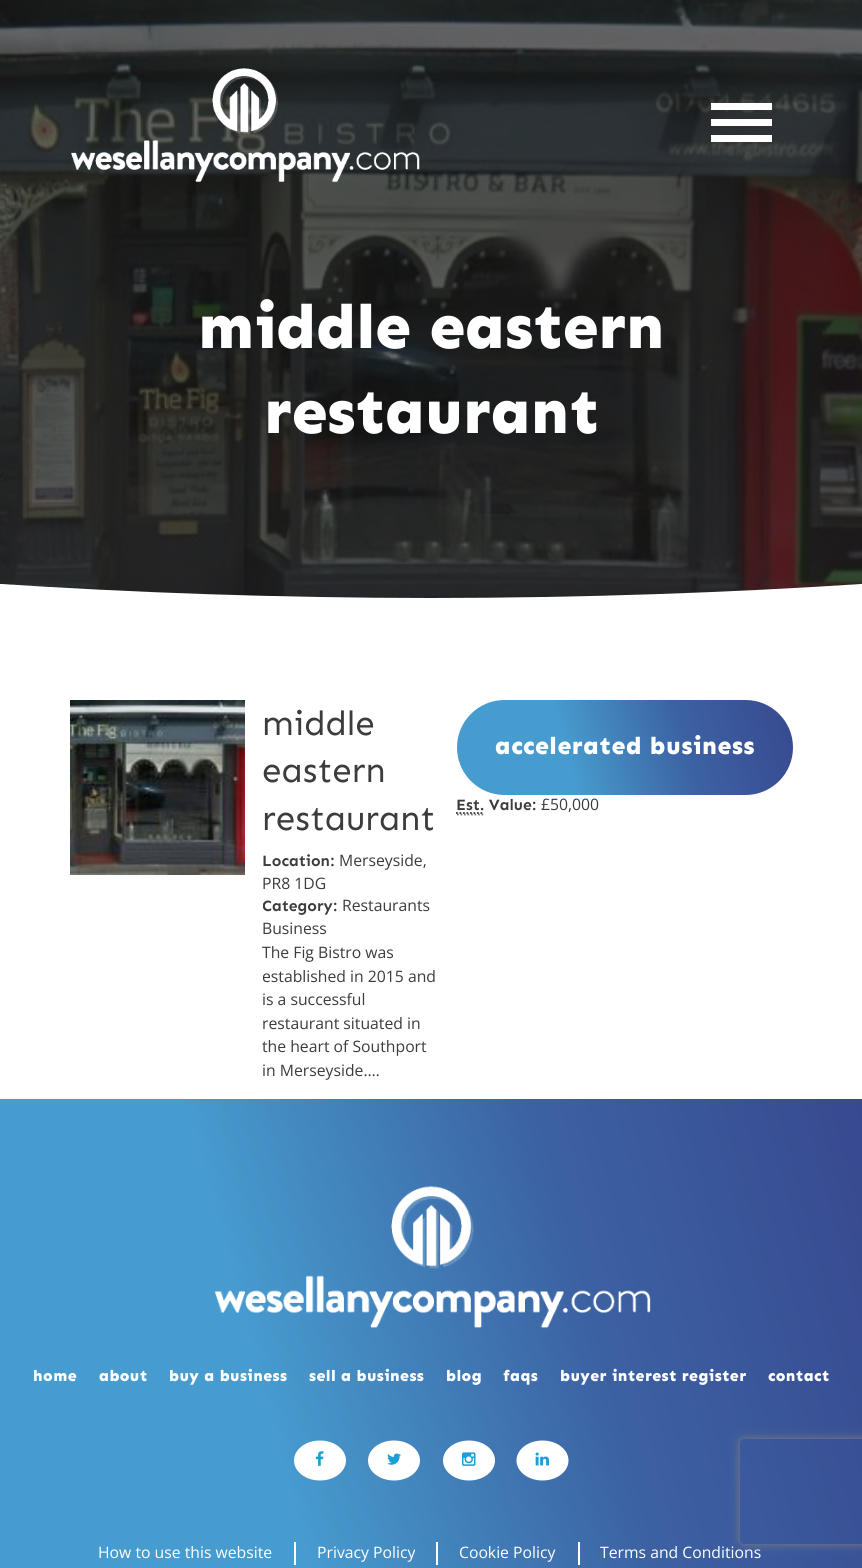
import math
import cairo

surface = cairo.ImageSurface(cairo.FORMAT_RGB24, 862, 1568)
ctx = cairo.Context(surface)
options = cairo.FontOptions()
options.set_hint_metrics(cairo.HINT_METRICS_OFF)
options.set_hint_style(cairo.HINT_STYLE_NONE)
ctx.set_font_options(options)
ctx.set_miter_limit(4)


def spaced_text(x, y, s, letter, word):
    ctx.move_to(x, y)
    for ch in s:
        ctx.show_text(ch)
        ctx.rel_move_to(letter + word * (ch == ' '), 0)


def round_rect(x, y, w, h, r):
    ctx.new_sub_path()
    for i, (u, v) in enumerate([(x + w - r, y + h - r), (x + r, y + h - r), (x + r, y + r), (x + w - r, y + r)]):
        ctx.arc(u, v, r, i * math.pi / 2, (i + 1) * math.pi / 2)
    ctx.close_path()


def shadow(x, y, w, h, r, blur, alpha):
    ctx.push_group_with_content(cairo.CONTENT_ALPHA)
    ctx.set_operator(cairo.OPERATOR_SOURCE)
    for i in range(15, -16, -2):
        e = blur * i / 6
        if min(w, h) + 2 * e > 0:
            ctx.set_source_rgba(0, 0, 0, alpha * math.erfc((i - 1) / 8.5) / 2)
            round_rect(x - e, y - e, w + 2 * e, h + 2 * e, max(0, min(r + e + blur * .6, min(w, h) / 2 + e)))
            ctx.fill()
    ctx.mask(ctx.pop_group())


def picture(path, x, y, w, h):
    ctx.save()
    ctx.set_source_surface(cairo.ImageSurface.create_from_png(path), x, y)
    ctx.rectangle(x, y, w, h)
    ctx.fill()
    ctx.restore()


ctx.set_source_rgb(1, 1, 1)
ctx.paint()
picture("img2.png", 0, 0, 862, 598)
picture("img1.png", 71, 68, 349, 115)
ctx.set_source_rgb(1, 1, 1)
ctx.rectangle(711, 103, 61, 7)
ctx.fill()
ctx.rectangle(711, 119, 61, 7)
ctx.fill()
ctx.rectangle(711, 135, 61, 7)
ctx.fill()
ctx.select_font_face("Sen ExtraBold")
ctx.set_font_size(63)
ctx.move_to(198, 348)
ctx.show_text("middle eastern")
ctx.move_to(264, 433)
ctx.show_text("restaurant")
ctx.new_path()
ctx.move_to(431, 598)
ctx.curve_to(-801, 597, -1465, 271, -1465, 271)
ctx.line_to(-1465, 709)
ctx.line_to(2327, 709)
ctx.line_to(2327, 271)
ctx.curve_to(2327, 271, 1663, 597, 431, 598)
ctx.close_path()
ctx.fill()
picture("img3.png", 70, 700, 175, 175)
ctx.select_font_face("sen")
ctx.set_font_size(35)
ctx.set_source_rgb(0.235, 0.235, 0.235)
ctx.move_to(262, 735)
ctx.show_text("middle")
ctx.move_to(262, 782)
ctx.show_text("eastern")
ctx.move_to(262, 830)
ctx.show_text("restaurant")
ctx.select_font_face("sen", cairo.FONT_SLANT_NORMAL, cairo.FONT_WEIGHT_BOLD)
ctx.set_font_size(15.75)
ctx.move_to(262, 866)
ctx.show_text("Location:")
ctx.select_font_face("Open Sans")
ctx.move_to(339, 866)
ctx.show_text("Merseyside,")
ctx.move_to(262, 889)
ctx.show_text("PR8 1DG")
ctx.save()
ctx.rectangle(263, 700, 176, 399)
ctx.clip()
ctx.select_font_face("sen", cairo.FONT_SLANT_NORMAL, cairo.FONT_WEIGHT_BOLD)
ctx.move_to(262, 911)
ctx.show_text("Category:")
ctx.restore()
ctx.move_to(342, 911)
ctx.show_text("Restaurants")
ctx.move_to(262, 934)
ctx.show_text("Business")
ctx.move_to(262, 958)
ctx.show_text("The Fig Bistro was")
ctx.save()
ctx.rectangle(263, 700, 176, 399)
ctx.clip()
ctx.move_to(262, 982)
ctx.show_text("established in 2015 and")
ctx.restore()
ctx.move_to(262, 1005)
ctx.show_text("is a successful")
ctx.move_to(262, 1029)
ctx.show_text("restaurant situated in")
ctx.move_to(262, 1052)
ctx.show_text("the heart of Southport")
ctx.move_to(262, 1076)
ctx.show_text("in Merseyside.…")
gradient = cairo.LinearGradient(456, 792, 793, 702)
gradient.add_color_stop_rgba(0, 0.278, 0.612, 0.812, 1)
gradient.add_color_stop_rgba(0.33, 0.278, 0.612, 0.812, 1)
gradient.add_color_stop_rgba(0.67, 0.235, 0.384, 0.639, 1)
gradient.add_color_stop_rgba(1, 0.22, 0.286, 0.565, 1)
ctx.set_source(gradient)
round_rect(457, 700, 336, 95, 47.5)
ctx.fill()
ctx.select_font_face("Sen ExtraBold")
ctx.set_font_size(24.5)
ctx.set_source_rgb(1, 1, 1)
spaced_text(495, 754, "accelerated business", 0.6, 0)
ctx.select_font_face("sen", cairo.FONT_SLANT_NORMAL, cairo.FONT_WEIGHT_BOLD)
ctx.set_font_size(15.75)
ctx.set_source_rgb(0.235, 0.235, 0.235)
ctx.move_to(456, 810)
ctx.show_text("Est. Value:")
ctx.new_path()
ctx.move_to(457, 814.5)
ctx.line_to(485, 814.5)
ctx.set_source_rgb(0.467, 0.467, 0.467)
ctx.set_line_width(1.8)
ctx.set_dash([1.75, 1.75])
ctx.stroke()
ctx.new_path()
ctx.move_to(456, 813)
ctx.line_to(484, 813)
ctx.set_source_rgb(0.235, 0.235, 0.235)
ctx.stroke()
ctx.select_font_face("Open Sans")
ctx.move_to(541, 810)
ctx.show_text("£50,000")
gradient = cairo.LinearGradient(-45, 1523, 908, 1268)
gradient.add_color_stop_rgba(0, 0.278, 0.612, 0.812, 1)
gradient.add_color_stop_rgba(0.33, 0.278, 0.612, 0.812, 1)
gradient.add_color_stop_rgba(0.67, 0.235, 0.384, 0.639, 1)
gradient.add_color_stop_rgba(1, 0.22, 0.286, 0.565, 1)
ctx.set_source(gradient)
ctx.rectangle(0, 1099, 862, 469)
ctx.fill()
picture("img4.png", 214, 1186, 437, 144)
ctx.select_font_face("Sen ExtraBold")
ctx.set_source_rgb(1, 1, 1)
spaced_text(33, 1381, "home", 0.4, 0)
spaced_text(99, 1381, "about", 0.4, 0)
spaced_text(169, 1381, "buy a business", 0.4, 0)
spaced_text(309, 1381, "sell a business", 0.4, 0)
spaced_text(446, 1381, "blog", 0.4, 0)
spaced_text(503, 1381, "faqs", 0.4, 0)
spaced_text(560, 1381, "buyer interest register", 0.4, 0)
spaced_text(768, 1381, "contact", 0.4, 0)
ctx.new_path()
ctx.move_to(320, 1440.5)
ctx.curve_to(334.5, 1440.5, 346, 1449.5, 346, 1460.5)
ctx.curve_to(346, 1471.5, 334.5, 1480.5, 320, 1480.5)
ctx.curve_to(305.5, 1480.5, 294, 1471.5, 294, 1460.5)
ctx.curve_to(294, 1449.5, 305.5, 1440.5, 320, 1440.5)
ctx.close_path()
ctx.fill()
picture("img5.png", 315, 1451, 9, 15)
ctx.new_path()
ctx.move_to(394, 1440.5)
ctx.curve_to(408.5, 1440.5, 420, 1449.5, 420, 1460.5)
ctx.curve_to(420, 1471.5, 408.5, 1480.5, 394, 1480.5)
ctx.curve_to(379.5, 1480.5, 368, 1471.5, 368, 1460.5)
ctx.curve_to(368, 1449.5, 379.5, 1440.5, 394, 1440.5)
ctx.close_path()
ctx.fill()
picture("img6.png", 387, 1453, 14, 12)
ctx.new_path()
ctx.move_to(469, 1440.5)
ctx.curve_to(483.5, 1440.5, 495, 1449.5, 495, 1460.5)
ctx.curve_to(495, 1471.5, 483.5, 1480.5, 469, 1480.5)
ctx.curve_to(454.5, 1480.5, 443, 1471.5, 443, 1460.5)
ctx.curve_to(443, 1449.5, 454.5, 1440.5, 469, 1440.5)
ctx.close_path()
ctx.fill()
picture("img7.png", 462, 1452, 14, 14)
ctx.new_path()
ctx.move_to(542.5, 1440.5)
ctx.curve_to(557, 1440.5, 568.5, 1449.5, 568.5, 1460.5)
ctx.curve_to(568.5, 1471.5, 557, 1480.5, 542.5, 1480.5)
ctx.curve_to(528, 1480.5, 516.5, 1471.5, 516.5, 1460.5)
ctx.curve_to(516.5, 1449.5, 528, 1440.5, 542.5, 1440.5)
ctx.close_path()
ctx.fill()
picture("img8.png", 535, 1452, 14, 14)
ctx.rectangle(294, 1542, 2, 23)
ctx.fill()
ctx.select_font_face("Open Sans")
ctx.move_to(98, 1558)
ctx.show_text("How to use this website")
ctx.rectangle(436, 1542, 2, 23)
ctx.fill()
ctx.move_to(317, 1558)
ctx.show_text("Privacy Policy")
ctx.rectangle(578, 1542, 2, 23)
ctx.fill()
ctx.move_to(459, 1558)
ctx.show_text("Cookie Policy")
ctx.move_to(600, 1558)
ctx.show_text("Terms and Conditions")
ctx.save()
ctx.set_fill_rule(cairo.FILL_RULE_EVEN_ODD)
ctx.new_path()
ctx.move_to(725, 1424)
ctx.line_to(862, 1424)
ctx.line_to(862, 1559)
ctx.line_to(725, 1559)
ctx.close_path()
ctx.move_to(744, 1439)
ctx.line_to(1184, 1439)
ctx.curve_to(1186, 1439, 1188, 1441, 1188, 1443)
ctx.line_to(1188, 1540)
ctx.curve_to(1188, 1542, 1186, 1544, 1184, 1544)
ctx.line_to(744, 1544)
ctx.curve_to(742, 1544, 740, 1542, 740, 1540)
ctx.line_to(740, 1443)
ctx.curve_to(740, 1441, 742, 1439, 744, 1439)
ctx.close_path()
ctx.clip()
ctx.set_source_rgb(0.502, 0.502, 0.502)
shadow(740, 1439, 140, 105, 4, 4.5, 1)
ctx.restore()
surface.write_to_png("page.png")
